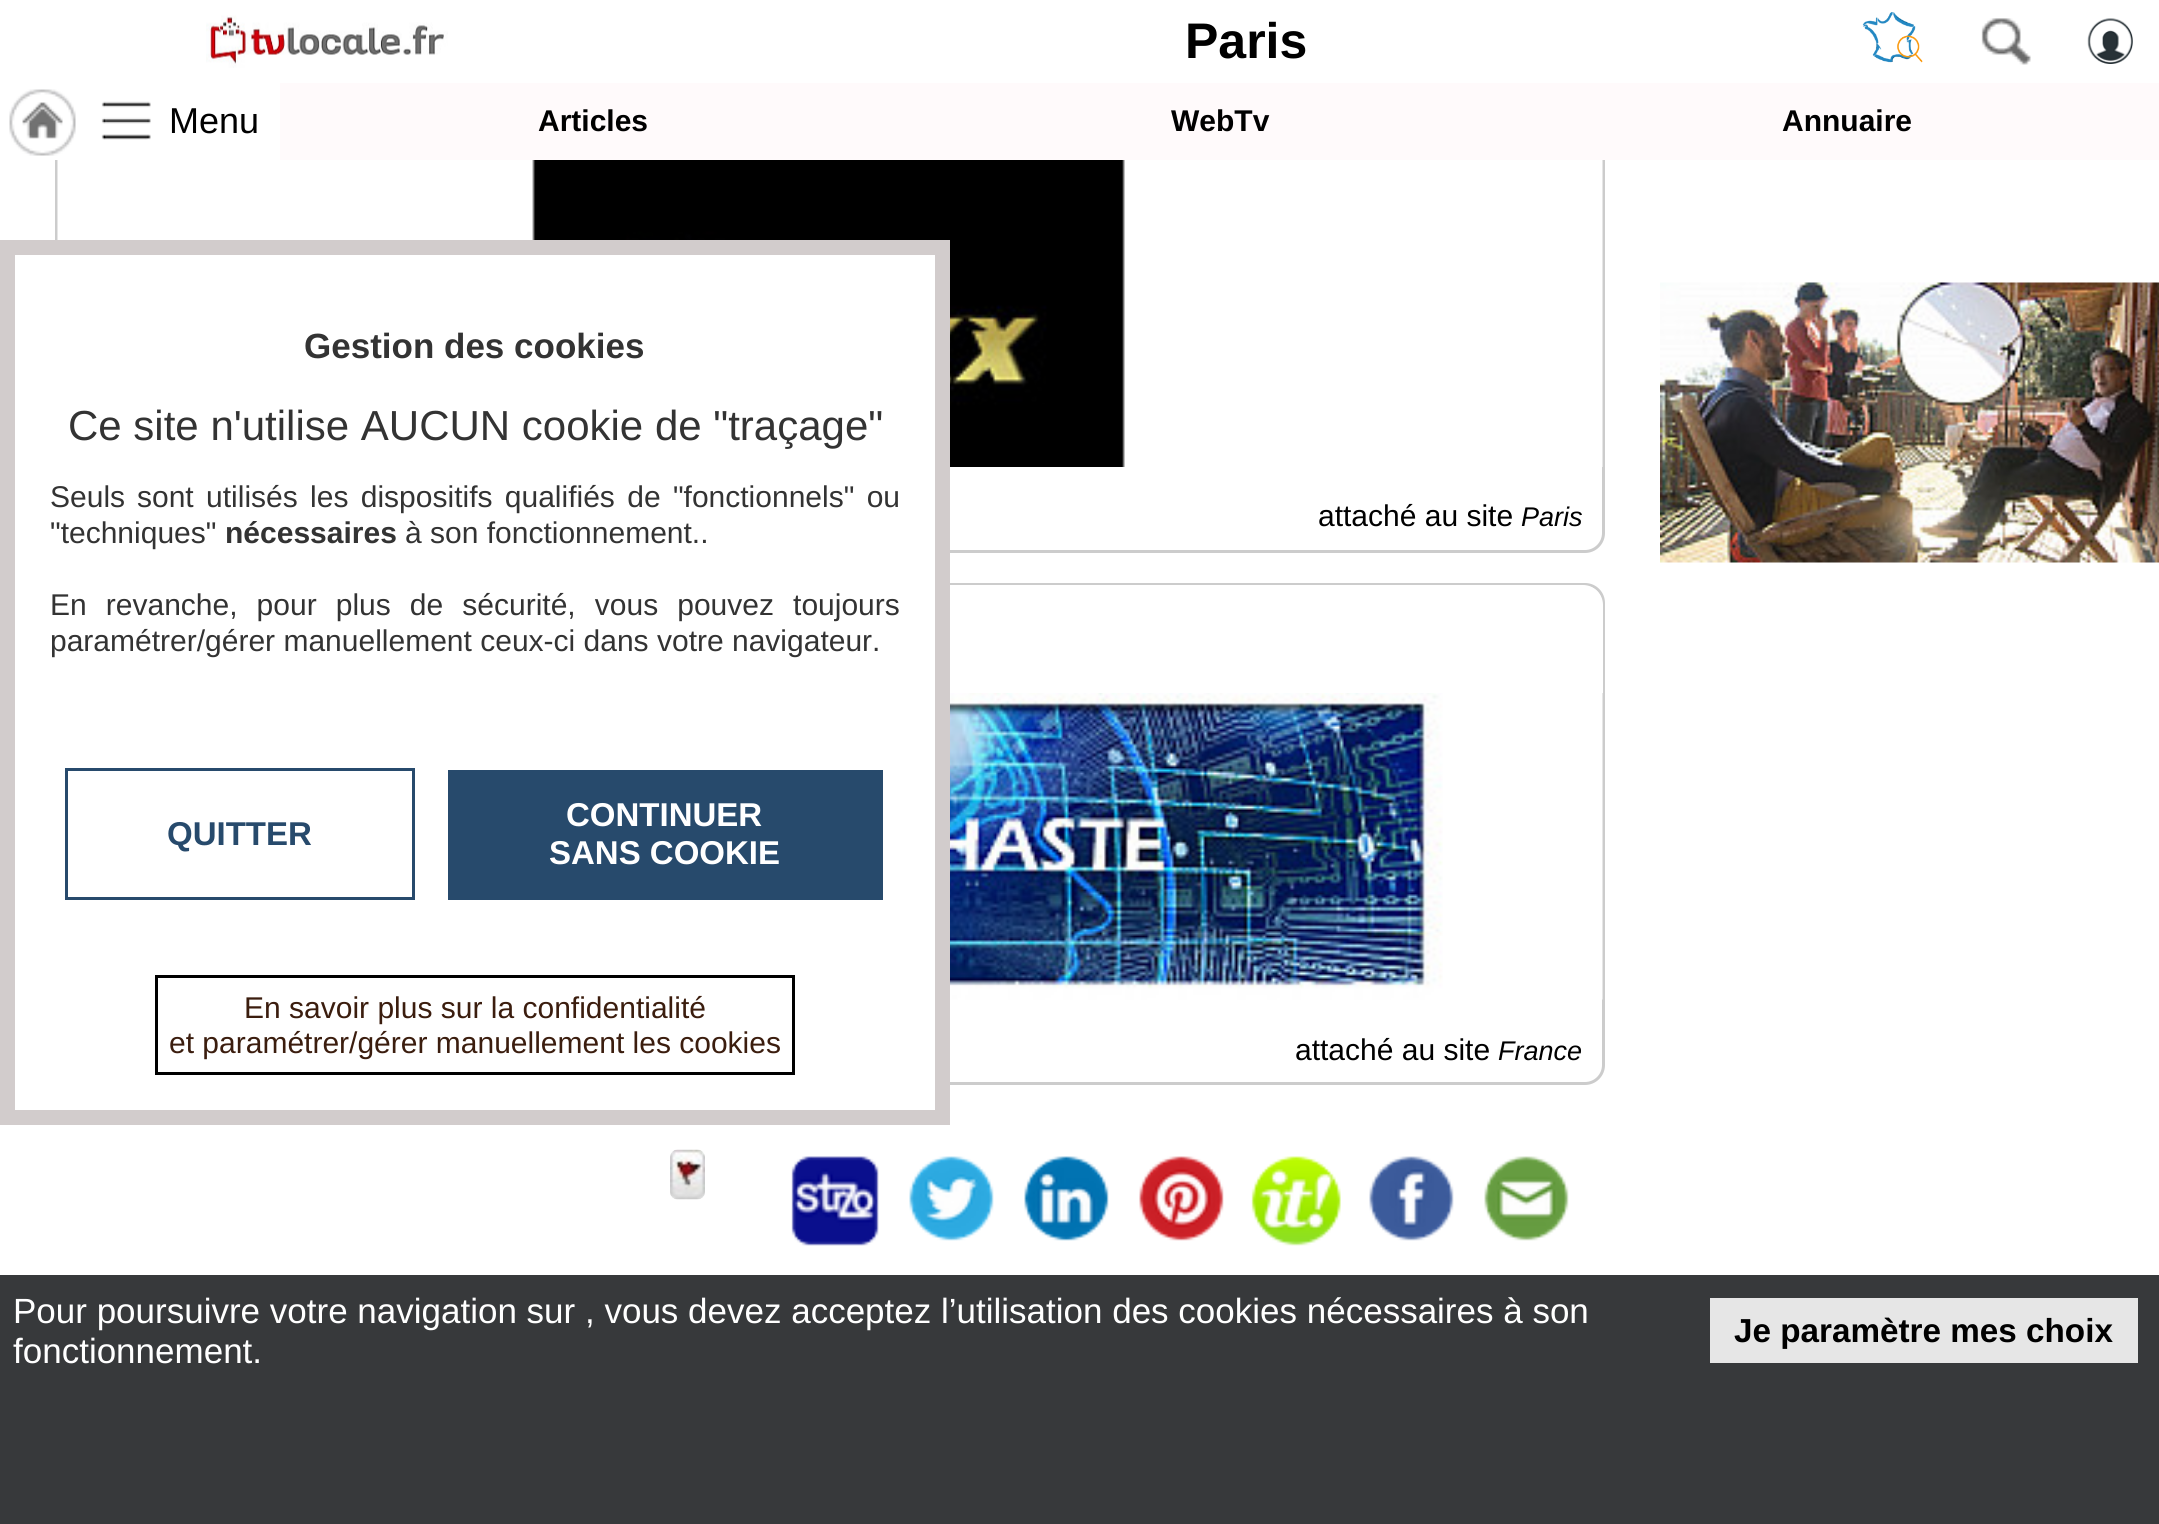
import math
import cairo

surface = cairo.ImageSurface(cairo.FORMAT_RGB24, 2159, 1524)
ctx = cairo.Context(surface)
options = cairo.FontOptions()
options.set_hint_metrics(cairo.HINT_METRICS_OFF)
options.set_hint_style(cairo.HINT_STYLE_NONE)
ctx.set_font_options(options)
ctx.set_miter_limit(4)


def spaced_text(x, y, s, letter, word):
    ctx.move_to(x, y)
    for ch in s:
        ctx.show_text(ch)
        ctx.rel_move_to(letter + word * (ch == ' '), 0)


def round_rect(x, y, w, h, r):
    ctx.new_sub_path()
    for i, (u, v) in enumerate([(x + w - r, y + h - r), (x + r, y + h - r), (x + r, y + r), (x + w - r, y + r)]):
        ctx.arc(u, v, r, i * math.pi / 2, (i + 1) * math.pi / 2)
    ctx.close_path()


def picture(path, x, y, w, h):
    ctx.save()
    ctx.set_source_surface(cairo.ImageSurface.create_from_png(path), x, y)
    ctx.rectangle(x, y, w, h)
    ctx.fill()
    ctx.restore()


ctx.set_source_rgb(1, 1, 1)
ctx.paint()
round_rect(56.5, 49.5, 1547, 502, 18.5)
ctx.set_source_rgb(0.8, 0.8, 0.8)
ctx.set_line_width(3)
ctx.stroke()
ctx.set_source_rgb(1, 1, 1)
ctx.rectangle(55, 48, 1550, 112)
ctx.fill()
picture("img1.png", 206, 15, 242, 53)
ctx.select_font_face("Liberation Sans", cairo.FONT_SLANT_NORMAL, cairo.FONT_WEIGHT_BOLD)
ctx.set_font_size(50)
ctx.set_source_rgb(0, 0, 0)
ctx.move_to(1185, 58)
ctx.show_text("Paris")
picture("img2.png", 1862, 12, 61, 51)
picture("img3.png", 1981, 18, 50, 47)
picture("img4.png", 2087, 18, 46, 46)
picture("img5.png", 9, 89, 67, 67)
picture("img6.png", 101, 101, 50, 39)
ctx.select_font_face("Liberation Sans")
ctx.set_font_size(36)
ctx.move_to(169, 133)
ctx.show_text("Menu")
ctx.set_source_rgb(1, 0.98, 0.984)
ctx.rectangle(280, 83, 1879, 77)
ctx.fill()
ctx.select_font_face("Liberation Sans", cairo.FONT_SLANT_NORMAL, cairo.FONT_WEIGHT_BOLD)
ctx.set_font_size(30)
ctx.set_source_rgb(0, 0, 0)
ctx.move_to(538, 131)
ctx.show_text("Articles")
ctx.move_to(1171, 131)
ctx.show_text("WebTv")
ctx.move_to(1782, 131)
ctx.show_text("Annuaire")
picture("img7.png", 57, 160, 1546, 307)
round_rect(56.5, 584.5, 1547, 499, 18.5)
ctx.set_source_rgb(0.8, 0.8, 0.8)
ctx.stroke()
ctx.set_source_rgb(1, 1, 1)
ctx.new_path()
ctx.move_to(78, 585)
ctx.line_to(1583, 585)
ctx.curve_to(1594, 585, 1603, 594, 1603, 605)
ctx.line_to(1603, 693)
ctx.line_to(58, 693)
ctx.line_to(58, 605)
ctx.curve_to(58, 594, 67, 585, 78, 585)
ctx.close_path()
ctx.fill()
ctx.rectangle(55, 255, 880, 830)
ctx.fill()
ctx.rectangle(7.5, 247.5, 935, 870)
ctx.set_source_rgb(0.824, 0.8, 0.8)
ctx.set_line_width(15)
ctx.stroke()
ctx.set_font_size(35)
ctx.set_source_rgb(0.2, 0.2, 0.2)
ctx.move_to(304, 358)
ctx.show_text("Gestion des cookies")
ctx.select_font_face("Liberation Sans")
ctx.set_font_size(42)
ctx.move_to(68, 440)
ctx.show_text("Ce site n'utilise AUCUN cookie de \"traçage\"")
ctx.set_font_size(30)
ctx.move_to(50, 507)
ctx.show_text("Seuls")
spaced_text(137, 507, "sont utilisés les dispositifs qualifiés de \"fonctionnels\" ou", 0, 4)
ctx.move_to(50, 543)
ctx.show_text("\"techniques\"")
ctx.select_font_face("Liberation Sans", cairo.FONT_SLANT_NORMAL, cairo.FONT_WEIGHT_BOLD)
ctx.move_to(225, 543)
ctx.show_text("nécessaires")
ctx.select_font_face("Liberation Sans")
ctx.move_to(405, 543)
ctx.show_text("à son fonctionnement..")
spaced_text(50, 615, "En revanche, pour plus de sécurité, vous pouvez toujours", 0, 10.75)
ctx.move_to(50, 651)
ctx.show_text("paramétrer/gérer manuellement ceux-ci dans votre navigateur.")
ctx.rectangle(66.5, 769.5, 347, 129)
ctx.set_source_rgb(0.153, 0.29, 0.424)
ctx.set_line_width(3)
ctx.stroke()
ctx.select_font_face("Liberation Sans", cairo.FONT_SLANT_NORMAL, cairo.FONT_WEIGHT_BOLD)
ctx.set_font_size(33)
ctx.move_to(167, 845)
ctx.show_text("QUITTER")
ctx.rectangle(448, 770, 435, 130)
ctx.fill()
ctx.set_source_rgb(1, 1, 1)
ctx.move_to(566, 826)
ctx.show_text("CONTINUER")
ctx.move_to(549, 864)
ctx.show_text("SANS COOKIE")
ctx.rectangle(156.5, 976.5, 637, 97)
ctx.set_source_rgb(0, 0, 0)
ctx.stroke()
ctx.select_font_face("Liberation Sans")
ctx.set_font_size(30)
ctx.set_source_rgb(0.231, 0.114, 0.055)
ctx.move_to(244, 1018)
ctx.show_text("En savoir plus sur la confidentialité")
ctx.move_to(169, 1053)
ctx.show_text("et paramétrer/gérer manuellement les cookies")
ctx.set_source_rgb(0, 0, 0)
ctx.move_to(1318, 526)
ctx.show_text("attaché au site")
ctx.select_font_face("Liberation Sans", cairo.FONT_SLANT_ITALIC)
ctx.set_font_size(27)
ctx.move_to(1521, 526)
ctx.show_text("Paris")
picture("img8.png", 950, 693, 653, 307)
ctx.select_font_face("Liberation Sans")
ctx.set_font_size(30)
ctx.move_to(1295, 1060)
ctx.show_text("attaché au site")
ctx.select_font_face("Liberation Sans", cairo.FONT_SLANT_ITALIC)
ctx.set_font_size(27)
ctx.move_to(1498, 1060)
ctx.show_text("France")
picture("img9.png", 670, 1149, 35, 51)
picture("img10.png", 791, 1156, 88, 90)
picture("img11.png", 909, 1156, 85, 85)
picture("img12.png", 1024, 1156, 85, 85)
picture("img13.png", 1139, 1156, 85, 85)
picture("img14.png", 1251, 1156, 90, 90)
picture("img15.png", 1369, 1156, 85, 85)
picture("img16.png", 1484, 1156, 85, 85)
picture("img17.png", 1660, 282, 499, 281)
ctx.set_source_rgb(0.216, 0.224, 0.231)
ctx.rectangle(0, 1275, 2159, 249)
ctx.fill()
ctx.select_font_face("Liberation Sans")
ctx.set_font_size(35)
ctx.set_source_rgb(1, 1, 1)
ctx.move_to(13, 1323)
ctx.show_text("Pour poursuivre votre navigation sur , vous devez acceptez l’utilisation des cookies nécessaires à son")
ctx.move_to(13, 1363)
ctx.show_text("fonctionnement.")
ctx.set_source_rgb(0.902, 0.902, 0.902)
ctx.rectangle(1710, 1298, 428, 65)
ctx.fill()
ctx.select_font_face("Liberation Sans", cairo.FONT_SLANT_NORMAL, cairo.FONT_WEIGHT_BOLD)
ctx.set_font_size(33.25)
ctx.set_source_rgb(0, 0, 0)
ctx.move_to(1734, 1342)
ctx.show_text("Je paramètre mes choix")
surface.write_to_png("page.png")
